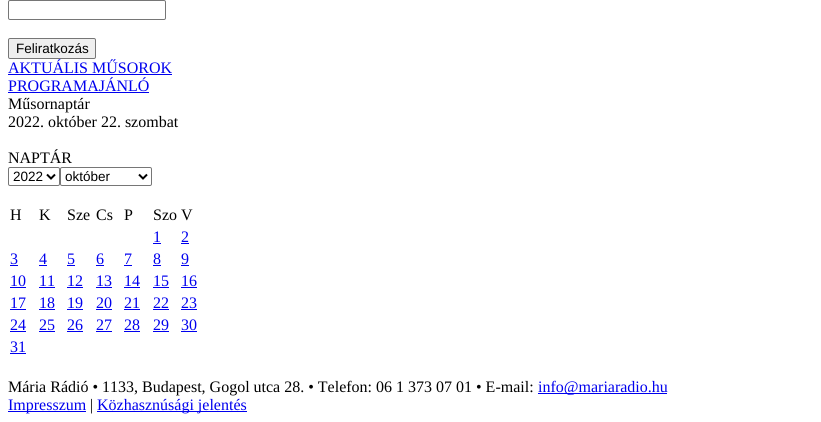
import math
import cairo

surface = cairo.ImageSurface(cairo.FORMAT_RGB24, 821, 422)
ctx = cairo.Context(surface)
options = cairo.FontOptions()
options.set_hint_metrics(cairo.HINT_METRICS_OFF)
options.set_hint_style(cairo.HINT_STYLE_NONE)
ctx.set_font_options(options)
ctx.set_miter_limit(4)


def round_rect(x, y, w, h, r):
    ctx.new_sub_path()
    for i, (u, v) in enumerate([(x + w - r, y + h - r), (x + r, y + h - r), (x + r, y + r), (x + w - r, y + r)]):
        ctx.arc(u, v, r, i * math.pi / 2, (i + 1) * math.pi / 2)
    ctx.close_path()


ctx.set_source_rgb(1, 1, 1)
ctx.paint()
round_rect(8.5, 0.5, 157, 19, 1.5)
ctx.set_source_rgb(0.463, 0.463, 0.463)
ctx.set_line_width(1)
ctx.stroke()
ctx.set_source_rgb(0.937, 0.937, 0.937)
round_rect(8.5, 38.5, 87, 20, 1.5)
ctx.fill_preserve()
ctx.set_source_rgb(0.463, 0.463, 0.463)
ctx.stroke()
ctx.select_font_face("Liberation Sans")
ctx.set_font_size(13.5)
ctx.set_source_rgb(0, 0, 0)
ctx.move_to(16, 53)
ctx.show_text("Feliratkozás")
ctx.select_font_face("Liberation Serif")
ctx.set_font_size(16)
ctx.set_source_rgb(0, 0, 0.933)
ctx.move_to(8, 73)
ctx.show_text("AKTUÁLIS MŰSOROK")
ctx.rectangle(8, 74, 164, 1)
ctx.fill()
ctx.move_to(8, 91)
ctx.show_text("PROGRAMAJÁNLÓ")
ctx.rectangle(8, 92, 141, 1)
ctx.fill()
ctx.set_source_rgb(0, 0, 0)
ctx.move_to(8, 109)
ctx.show_text("Műsornaptár")
ctx.move_to(8, 127)
ctx.show_text("2022. október 22. szombat")
ctx.move_to(8, 163)
ctx.show_text("NAPTÁR")
round_rect(8.5, 167.5, 51, 18, 1.5)
ctx.set_source_rgb(0.463, 0.463, 0.463)
ctx.stroke()
ctx.new_path()
ctx.move_to(47, 174.5)
ctx.line_to(51, 178.5)
ctx.line_to(55, 174.5)
ctx.set_source_rgb(0, 0, 0)
ctx.set_line_width(2)
ctx.stroke()
ctx.select_font_face("Liberation Sans")
ctx.set_font_size(13.5)
ctx.move_to(13, 181)
ctx.show_text("2022")
round_rect(60.5, 167.5, 91, 18, 1.5)
ctx.set_source_rgb(0.463, 0.463, 0.463)
ctx.set_line_width(1)
ctx.stroke()
ctx.new_path()
ctx.move_to(139, 174.5)
ctx.line_to(143, 178.5)
ctx.line_to(147, 174.5)
ctx.set_source_rgb(0, 0, 0)
ctx.set_line_width(2)
ctx.stroke()
ctx.move_to(65, 181)
ctx.show_text("október")
ctx.select_font_face("Liberation Serif")
ctx.set_font_size(16)
ctx.move_to(10, 220)
ctx.show_text("H")
ctx.move_to(39, 220)
ctx.show_text("K")
ctx.move_to(67, 220)
ctx.show_text("Sze")
ctx.move_to(96, 220)
ctx.show_text("Cs")
ctx.move_to(124, 220)
ctx.show_text("P")
ctx.move_to(153, 220)
ctx.show_text("Szo")
ctx.move_to(181, 220)
ctx.show_text("V")
ctx.set_source_rgb(0, 0, 0.933)
ctx.move_to(153, 242)
ctx.show_text("1")
ctx.rectangle(153, 243, 8, 1)
ctx.fill()
ctx.move_to(181, 242)
ctx.show_text("2")
ctx.rectangle(181, 243, 8, 1)
ctx.fill()
ctx.move_to(10, 264)
ctx.show_text("3")
ctx.rectangle(10, 265, 8, 1)
ctx.fill()
ctx.move_to(39, 264)
ctx.show_text("4")
ctx.rectangle(39, 265, 8, 1)
ctx.fill()
ctx.move_to(67, 264)
ctx.show_text("5")
ctx.rectangle(67, 265, 8, 1)
ctx.fill()
ctx.move_to(96, 264)
ctx.show_text("6")
ctx.rectangle(96, 265, 8, 1)
ctx.fill()
ctx.move_to(124, 264)
ctx.show_text("7")
ctx.rectangle(124, 265, 8, 1)
ctx.fill()
ctx.move_to(153, 264)
ctx.show_text("8")
ctx.rectangle(153, 265, 8, 1)
ctx.fill()
ctx.move_to(181, 264)
ctx.show_text("9")
ctx.rectangle(181, 265, 8, 1)
ctx.fill()
ctx.move_to(10, 286)
ctx.show_text("10")
ctx.rectangle(10, 287, 16, 1)
ctx.fill()
ctx.move_to(39, 286)
ctx.show_text("11")
ctx.rectangle(39, 287, 16, 1)
ctx.fill()
ctx.move_to(67, 286)
ctx.show_text("12")
ctx.rectangle(67, 287, 16, 1)
ctx.fill()
ctx.move_to(96, 286)
ctx.show_text("13")
ctx.rectangle(96, 287, 16, 1)
ctx.fill()
ctx.move_to(124, 286)
ctx.show_text("14")
ctx.rectangle(124, 287, 16, 1)
ctx.fill()
ctx.move_to(153, 286)
ctx.show_text("15")
ctx.rectangle(153, 287, 16, 1)
ctx.fill()
ctx.move_to(181, 286)
ctx.show_text("16")
ctx.rectangle(181, 287, 16, 1)
ctx.fill()
ctx.move_to(10, 308)
ctx.show_text("17")
ctx.rectangle(10, 309, 16, 1)
ctx.fill()
ctx.move_to(39, 308)
ctx.show_text("18")
ctx.rectangle(39, 309, 16, 1)
ctx.fill()
ctx.move_to(67, 308)
ctx.show_text("19")
ctx.rectangle(67, 309, 16, 1)
ctx.fill()
ctx.move_to(96, 308)
ctx.show_text("20")
ctx.rectangle(96, 309, 16, 1)
ctx.fill()
ctx.move_to(124, 308)
ctx.show_text("21")
ctx.rectangle(124, 309, 16, 1)
ctx.fill()
ctx.move_to(153, 308)
ctx.show_text("22")
ctx.rectangle(153, 309, 16, 1)
ctx.fill()
ctx.move_to(181, 308)
ctx.show_text("23")
ctx.rectangle(181, 309, 16, 1)
ctx.fill()
ctx.move_to(10, 330)
ctx.show_text("24")
ctx.rectangle(10, 331, 16, 1)
ctx.fill()
ctx.move_to(39, 330)
ctx.show_text("25")
ctx.rectangle(39, 331, 16, 1)
ctx.fill()
ctx.move_to(67, 330)
ctx.show_text("26")
ctx.rectangle(67, 331, 16, 1)
ctx.fill()
ctx.move_to(96, 330)
ctx.show_text("27")
ctx.rectangle(96, 331, 16, 1)
ctx.fill()
ctx.move_to(124, 330)
ctx.show_text("28")
ctx.rectangle(124, 331, 16, 1)
ctx.fill()
ctx.move_to(153, 330)
ctx.show_text("29")
ctx.rectangle(153, 331, 16, 1)
ctx.fill()
ctx.move_to(181, 330)
ctx.show_text("30")
ctx.rectangle(181, 331, 16, 1)
ctx.fill()
ctx.move_to(10, 352)
ctx.show_text("31")
ctx.rectangle(10, 353, 16, 1)
ctx.fill()
ctx.set_source_rgb(0, 0, 0)
ctx.move_to(8, 392)
ctx.show_text("Mária Rádió • 1133, Budapest, Gogol utca 28. • Telefon: 06 1 373 07 01 • E-mail:")
ctx.set_source_rgb(0, 0, 0.933)
ctx.rectangle(538, 393, 129, 1)
ctx.fill()
ctx.move_to(538, 392)
ctx.show_text("info@mariaradio.hu")
ctx.rectangle(8, 411, 78, 1)
ctx.fill()
ctx.move_to(8, 410)
ctx.show_text("Impresszum")
ctx.set_source_rgb(0, 0, 0)
ctx.move_to(90, 410)
ctx.show_text("|")
ctx.set_source_rgb(0, 0, 0.933)
ctx.rectangle(97, 411, 150, 1)
ctx.fill()
ctx.move_to(97, 410)
ctx.show_text("Közhasznúsági jelentés")
surface.write_to_png("page.png")
